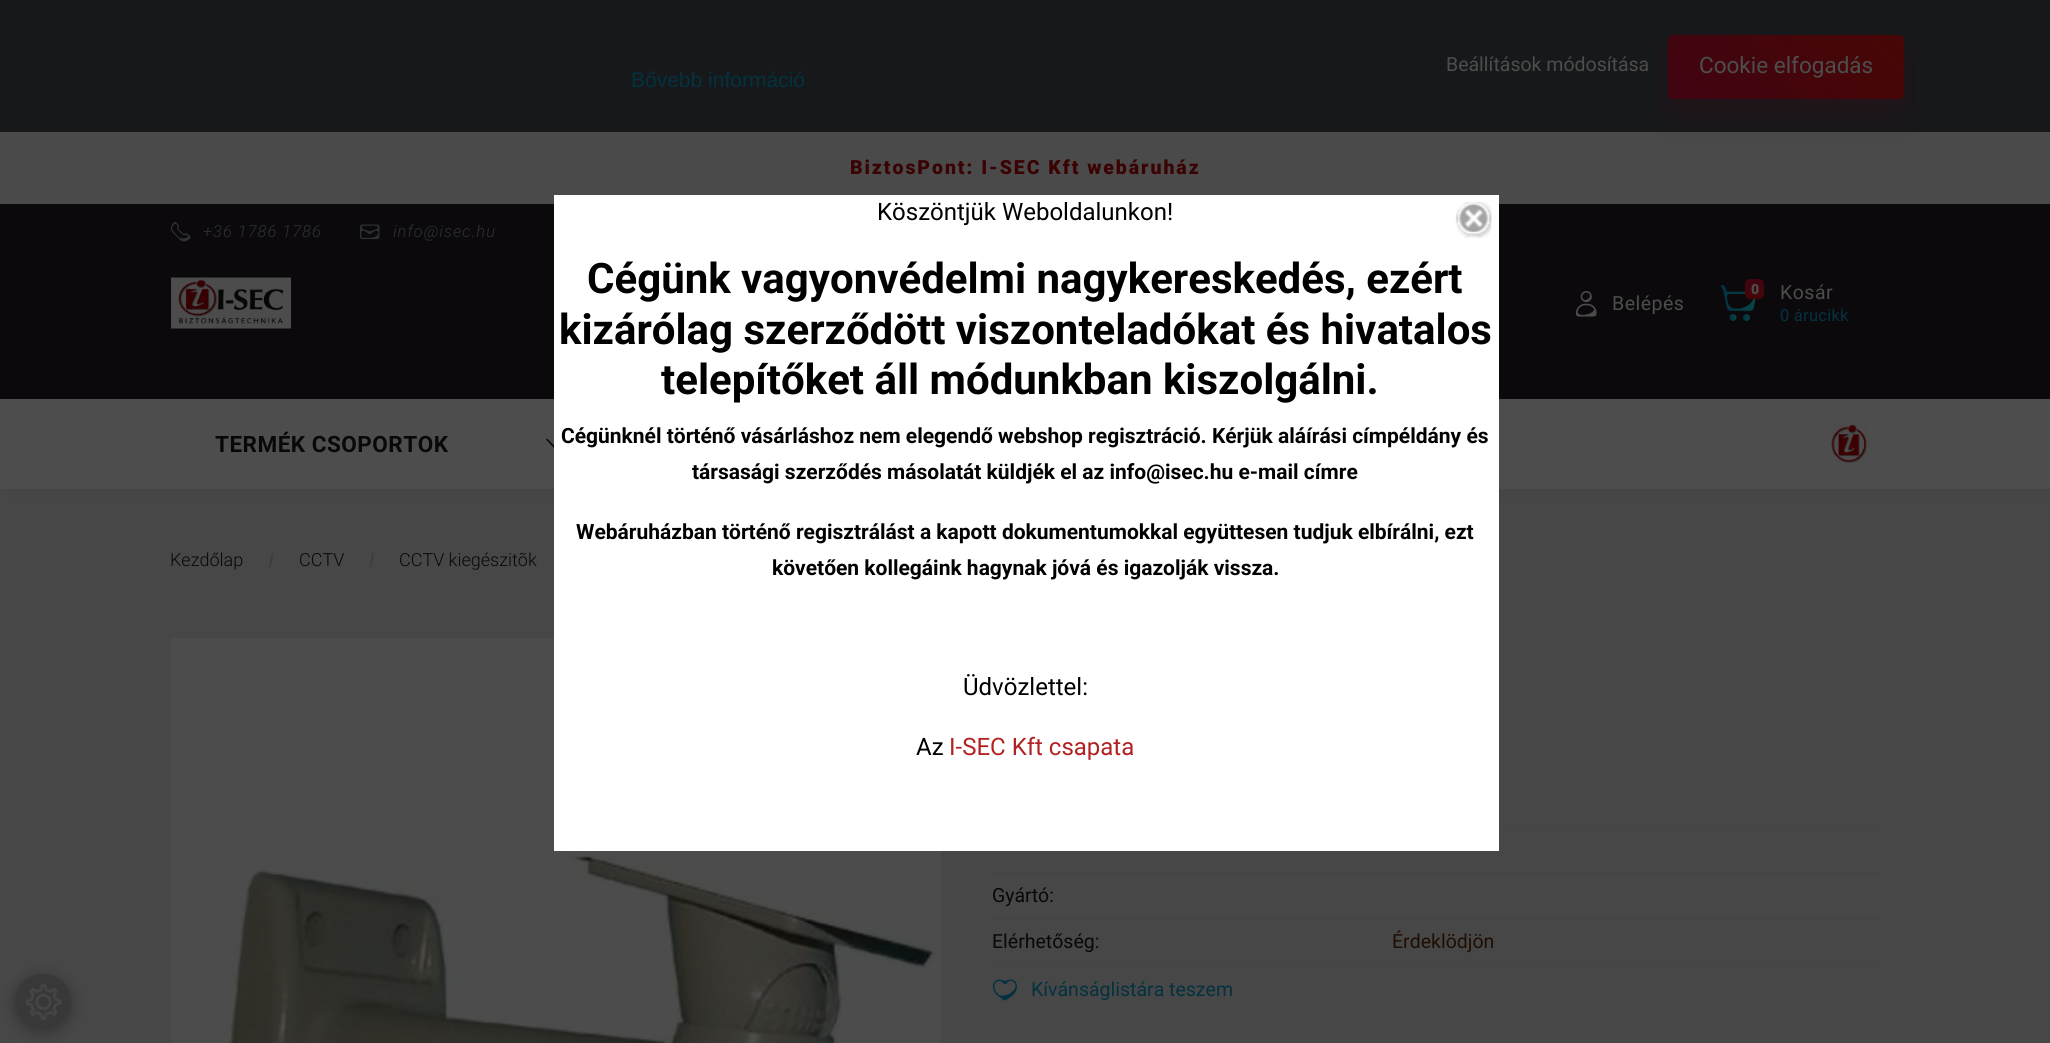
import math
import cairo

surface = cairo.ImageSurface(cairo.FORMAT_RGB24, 2050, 1043)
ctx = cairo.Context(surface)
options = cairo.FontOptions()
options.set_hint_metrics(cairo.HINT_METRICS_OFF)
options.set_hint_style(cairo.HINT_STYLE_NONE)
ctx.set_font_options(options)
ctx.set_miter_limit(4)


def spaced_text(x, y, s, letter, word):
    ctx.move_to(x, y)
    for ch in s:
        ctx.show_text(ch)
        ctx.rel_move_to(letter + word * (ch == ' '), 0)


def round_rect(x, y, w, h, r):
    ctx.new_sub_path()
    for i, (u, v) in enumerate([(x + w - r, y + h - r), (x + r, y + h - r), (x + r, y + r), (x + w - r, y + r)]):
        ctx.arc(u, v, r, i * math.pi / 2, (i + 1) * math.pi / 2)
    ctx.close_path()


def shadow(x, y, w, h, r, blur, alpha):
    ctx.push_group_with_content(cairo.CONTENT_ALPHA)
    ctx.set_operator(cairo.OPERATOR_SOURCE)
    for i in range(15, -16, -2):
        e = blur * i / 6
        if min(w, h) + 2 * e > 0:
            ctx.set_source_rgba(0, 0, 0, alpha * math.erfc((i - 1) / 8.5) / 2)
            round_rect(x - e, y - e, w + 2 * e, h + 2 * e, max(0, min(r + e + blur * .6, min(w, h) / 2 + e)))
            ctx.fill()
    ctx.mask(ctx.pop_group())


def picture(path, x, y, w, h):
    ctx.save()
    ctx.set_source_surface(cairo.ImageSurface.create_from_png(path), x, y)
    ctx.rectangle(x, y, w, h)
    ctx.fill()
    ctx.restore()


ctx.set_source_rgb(0.278, 0.278, 0.278)
ctx.paint()
ctx.set_source_rgb(0, 0, 0)
shadow(15, 147, 2021, 327, 0, 19, 0.15)
ctx.set_source_rgb(0.086, 0.094, 0.102)
ctx.rectangle(0, 0, 2050, 132)
ctx.fill()
ctx.select_font_face("Liberation Sans")
ctx.set_font_size(21)
ctx.set_source_rgb(0.016, 0.192, 0.251)
ctx.move_to(631, 87)
ctx.show_text("Bővebb információ")
ctx.select_font_face("Roboto")
ctx.set_font_size(19.5)
ctx.set_source_rgb(0.302, 0.302, 0.302)
ctx.move_to(1446, 71)
ctx.show_text("Beállítások módosítása")
ctx.set_source_rgb(0.29, 0.29, 0.29)
ctx.rectangle(0, 132, 2050, 72)
ctx.fill()
ctx.set_source_rgb(0.251, 0.016, 0.067)
shadow(1668, 50, 236, 64, 5, 15, 0.25)
gradient = cairo.LinearGradient(1749, 196, 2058, -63)
gradient.add_color_stop_rgba(0, 0.251, 0.016, 0.067, 1)
gradient.add_color_stop_rgba(0.51, 0.278, 0.024, 0.024, 1)
gradient.add_color_stop_rgba(1, 0.251, 0.016, 0.067, 1)
ctx.set_source(gradient)
round_rect(1668, 35, 236, 64, 5)
ctx.fill()
ctx.set_font_size(22.5)
ctx.set_source_rgb(0.302, 0.302, 0.302)
ctx.move_to(1699, 73)
ctx.show_text("Cookie elfogadás")
ctx.save()
ctx.set_fill_rule(cairo.FILL_RULE_EVEN_ODD)
ctx.new_path()
ctx.move_to(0, 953)
ctx.line_to(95, 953)
ctx.line_to(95, 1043)
ctx.line_to(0, 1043)
ctx.close_path()
ctx.move_to(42.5, 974)
ctx.line_to(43.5, 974)
ctx.curve_to(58.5, 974, 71, 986.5, 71, 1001.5)
ctx.curve_to(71, 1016.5, 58.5, 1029, 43.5, 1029)
ctx.line_to(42.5, 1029)
ctx.curve_to(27.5, 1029, 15, 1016.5, 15, 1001.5)
ctx.curve_to(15, 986.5, 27.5, 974, 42.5, 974)
ctx.close_path()
ctx.clip()
ctx.set_source_rgb(0, 0, 0)
shadow(15, 977, 56, 55, 27.5, 7.5, 0.3)
ctx.restore()
ctx.set_source_rgba(0.09, 0.09, 0.09, 0.3)
round_rect(15, 974, 56, 55, 27.5)
ctx.fill()
picture("img1.png", 26, 984, 36, 36)
ctx.set_source_rgb(0.043, 0.039, 0.043)
ctx.rectangle(0, 204, 2050, 195)
ctx.fill()
ctx.select_font_face("Roboto Black")
ctx.set_font_size(19.5)
ctx.set_source_rgb(0.227, 0.008, 0.008)
spaced_text(850, 174, "BiztosPont: I-SEC Kft webáruház", 1.95, 0)
picture("img2.png", 171, 222, 20, 20)
ctx.select_font_face("Roboto Light", cairo.FONT_SLANT_ITALIC)
ctx.set_font_size(16.5)
ctx.set_source_rgb(0.18, 0.188, 0.204)
spaced_text(203, 237, "+36 1786 1786", 1, 0)
picture("img3.png", 360, 224, 20, 16)
spaced_text(393, 237, "info@isec.hu", 1, 0)
picture("img4.png", 171, 277, 120, 52)
picture("img5.png", 1575, 291, 22, 26)
ctx.select_font_face("Roboto")
ctx.set_font_size(19.5)
ctx.set_source_rgb(0.302, 0.302, 0.302)
spaced_text(1612, 310, "Belépés", 0.5, 0)
picture("img6.png", 1721, 285, 35, 36)
gradient = cairo.LinearGradient(1754, 279, 1754, 299)
gradient.add_color_stop_rgba(0, 0.251, 0.016, 0.067, 1)
gradient.add_color_stop_rgba(1, 0.278, 0.024, 0.024, 1)
ctx.set_source(gradient)
round_rect(1745, 279, 19, 20, 5)
ctx.fill()
ctx.select_font_face("Roboto Black")
ctx.set_font_size(14)
ctx.set_source_rgb(0.302, 0.302, 0.302)
spaced_text(1751, 294, "0", 0.25, 0)
ctx.select_font_face("Roboto")
ctx.set_font_size(19.5)
spaced_text(1780, 299, "Kosár", 0.5, 0)
ctx.set_font_size(16.5)
ctx.set_source_rgb(0.016, 0.192, 0.251)
spaced_text(1780, 321, "0 árucikk", 0.25, 0)
ctx.set_source_rgb(0.302, 0.302, 0.302)
ctx.rectangle(0, 399, 2050, 90)
ctx.fill()
ctx.select_font_face("Roboto", cairo.FONT_SLANT_NORMAL, cairo.FONT_WEIGHT_BOLD)
ctx.set_font_size(22.5)
ctx.set_source_rgb(0.039, 0.035, 0.035)
spaced_text(215, 452, "TERMÉK CSOPORTOK", 0.5, 0)
ctx.new_path()
ctx.move_to(547, 438.5)
ctx.line_to(555.5, 447)
ctx.line_to(554, 448)
ctx.line_to(546, 439.5)
ctx.close_path()
ctx.fill()
picture("img7.png", 1831, 424, 37, 39)
ctx.select_font_face("Roboto Light")
ctx.set_font_size(18)
ctx.move_to(170, 566)
ctx.show_text("Kezdőlap")
ctx.set_source_rgb(0.235, 0.235, 0.235)
ctx.new_path()
ctx.move_to(272, 552.5)
ctx.line_to(273.5, 553)
ctx.line_to(270.5, 567.5)
ctx.line_to(269, 567)
ctx.close_path()
ctx.fill()
ctx.set_source_rgb(0.039, 0.035, 0.035)
ctx.move_to(299, 566)
ctx.show_text("CCTV")
ctx.set_source_rgb(0.235, 0.235, 0.235)
ctx.new_path()
ctx.move_to(372.5, 552.5)
ctx.line_to(374, 553)
ctx.line_to(371, 567.5)
ctx.line_to(369.5, 567)
ctx.close_path()
ctx.fill()
ctx.set_source_rgb(0.039, 0.035, 0.035)
ctx.move_to(399, 566)
ctx.show_text("CCTV kiegészitõk")
picture("img8.png", 171, 638, 770, 405)
ctx.set_source_rgb(0.275, 0.271, 0.267)
ctx.rectangle(1499, 825, 382, 2)
ctx.fill()
ctx.rectangle(992, 872, 889, 2)
ctx.fill()
ctx.rectangle(992, 918, 889, 2)
ctx.fill()
ctx.select_font_face("Roboto")
ctx.set_font_size(19.5)
ctx.set_source_rgb(0.039, 0.035, 0.035)
ctx.move_to(992, 902)
ctx.show_text("Gyártó:")
ctx.set_source_rgb(0.275, 0.271, 0.267)
ctx.rectangle(992, 965, 889, 2)
ctx.fill()
ctx.set_source_rgb(0.039, 0.035, 0.035)
ctx.move_to(992, 948)
ctx.show_text("Elérhetőség:")
ctx.set_source_rgb(0.125, 0.051, 0.008)
ctx.move_to(1392, 948)
ctx.show_text("Érdeklödjön")
picture("img9.png", 993, 979, 24, 22)
ctx.set_source_rgb(0.016, 0.192, 0.251)
ctx.move_to(1031, 996)
ctx.show_text("Kívánságlistára teszem")
ctx.set_source_rgb(1, 1, 1)
ctx.rectangle(554, 195, 945, 656)
ctx.fill()
ctx.set_font_size(24)
ctx.set_source_rgb(0, 0, 0)
ctx.move_to(877, 220)
ctx.show_text("Köszöntjük Weboldalunkon!")
picture("img10.png", 1455, 202, 37, 36)
ctx.select_font_face("Roboto", cairo.FONT_SLANT_NORMAL, cairo.FONT_WEIGHT_BOLD)
ctx.set_font_size(42)
ctx.move_to(587, 293)
ctx.show_text("Cégünk vagyonvédelmi nagykereskedés, ezért")
ctx.move_to(559, 344)
ctx.show_text("kizárólag szerződött viszonteladókat és hivatalos")
ctx.move_to(661, 394)
ctx.show_text("telepítőket áll módunkban kiszolgálni.")
ctx.set_font_size(21)
ctx.move_to(561, 443)
ctx.show_text("Cégünknél történő vásárláshoz nem elegendő webshop regisztráció. Kérjük aláírási címpéldány és")
ctx.move_to(692, 479)
ctx.show_text("társasági szerződés másolatát küldjék el az info@isec.hu e-mail címre")
ctx.move_to(576, 539)
ctx.show_text("Webáruházban történő regisztrálást a kapott dokumentumokkal együttesen tudjuk elbírálni, ezt")
ctx.move_to(772, 575)
ctx.show_text("követően kollegáink hagynak jóvá és igazolják vissza.")
ctx.select_font_face("Roboto")
ctx.set_font_size(24)
ctx.move_to(963, 695)
ctx.show_text("Üdvözlettel:")
ctx.move_to(916, 755)
ctx.show_text("Az")
ctx.set_source_rgb(0.698, 0.133, 0.133)
ctx.move_to(949, 755)
ctx.show_text("I-SEC Kft csapata")
surface.write_to_png("page.png")
